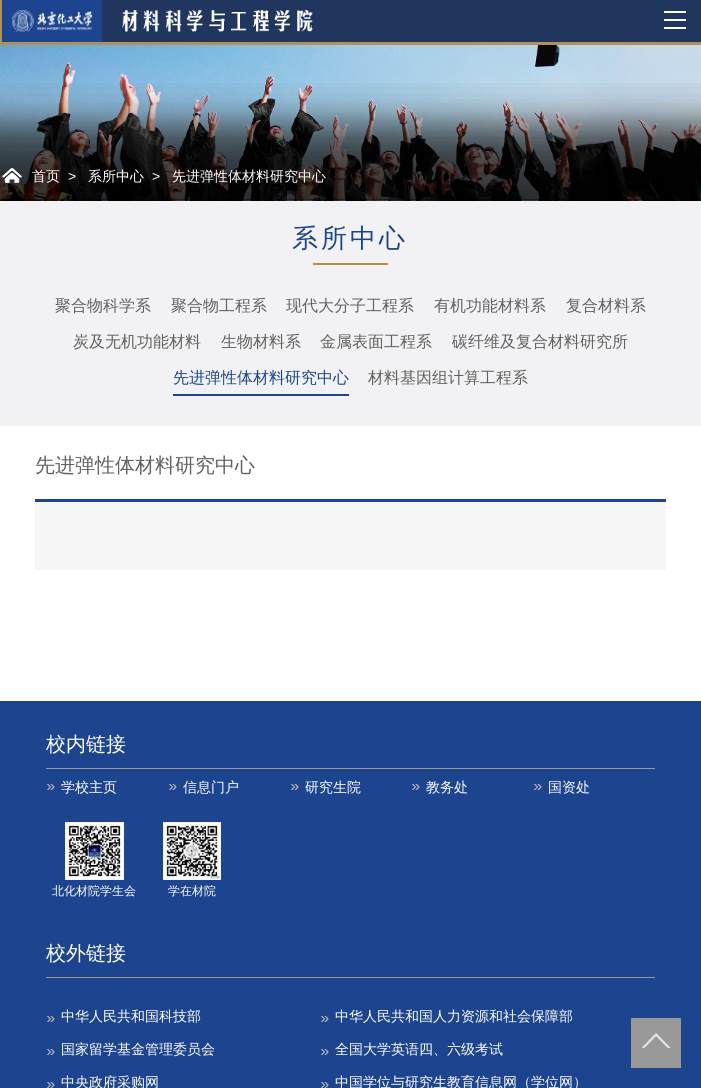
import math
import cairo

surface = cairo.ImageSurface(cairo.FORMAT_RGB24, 701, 1088)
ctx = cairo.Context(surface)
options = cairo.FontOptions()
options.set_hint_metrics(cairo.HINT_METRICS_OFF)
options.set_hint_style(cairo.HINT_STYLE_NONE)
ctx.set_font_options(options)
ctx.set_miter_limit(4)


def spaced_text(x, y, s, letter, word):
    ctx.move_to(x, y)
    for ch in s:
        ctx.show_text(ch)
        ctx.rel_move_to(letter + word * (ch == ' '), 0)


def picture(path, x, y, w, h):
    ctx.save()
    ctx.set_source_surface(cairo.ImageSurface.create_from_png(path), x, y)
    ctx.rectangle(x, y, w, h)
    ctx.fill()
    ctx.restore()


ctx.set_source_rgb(1, 1, 1)
ctx.paint()
ctx.set_source_rgb(0.129, 0.212, 0.369)
ctx.rectangle(102, 0, 599, 42)
ctx.fill()
ctx.set_source_rgb(0.694, 0.569, 0.341)
ctx.rectangle(0, 42, 701, 3)
ctx.fill()
ctx.set_source_rgb(0.114, 0.271, 0.561)
ctx.rectangle(2, 0, 100, 42)
ctx.fill()
ctx.set_source_rgb(0.694, 0.569, 0.341)
ctx.rectangle(0, 0, 2, 42)
ctx.fill()
picture("img1.png", 12, 10, 80, 22)
picture("img2.png", 122, 10, 191, 22)
ctx.set_source_rgb(1, 1, 1)
ctx.rectangle(664, 11, 22, 2)
ctx.fill()
ctx.rectangle(664, 19, 22, 2)
ctx.fill()
ctx.rectangle(664, 27, 22, 2)
ctx.fill()
picture("img3.png", 0, 45, 701, 156)
picture("img4.png", 0, 83, 701, 118)
picture("img5.png", 2, 168, 20, 15)
ctx.select_font_face("WenQuanYi Zen Hei Medium")
ctx.set_font_size(14)
ctx.move_to(32, 181)
ctx.show_text("首页")
ctx.select_font_face("Liberation Sans")
ctx.move_to(68, 181)
ctx.show_text(">")
ctx.select_font_face("WenQuanYi Zen Hei Medium")
ctx.move_to(88, 181)
ctx.show_text("系所中心")
ctx.select_font_face("Liberation Sans")
ctx.move_to(152, 181)
ctx.show_text(">")
ctx.select_font_face("WenQuanYi Zen Hei Medium")
ctx.move_to(172, 181)
ctx.show_text("先进弹性体材料研究中心")
ctx.set_source_rgb(0.949, 0.949, 0.957)
ctx.rectangle(0, 201, 701, 225)
ctx.fill()
ctx.set_font_size(26)
ctx.set_source_rgb(0.114, 0.271, 0.561)
spaced_text(292, 247, "系所中心", 3, 0)
ctx.set_source_rgb(0.725, 0.557, 0.208)
ctx.rectangle(313, 263, 75, 2)
ctx.fill()
ctx.set_font_size(16)
ctx.set_source_rgb(0.38, 0.38, 0.38)
ctx.move_to(55, 311)
ctx.show_text("聚合物科学系")
ctx.move_to(171, 311)
ctx.show_text("聚合物工程系")
ctx.move_to(286, 311)
ctx.show_text("现代大分子工程系")
ctx.move_to(434, 311)
ctx.show_text("有机功能材料系")
ctx.move_to(566, 311)
ctx.show_text("复合材料系")
ctx.move_to(73, 347)
ctx.show_text("炭及无机功能材料")
ctx.move_to(221, 347)
ctx.show_text("生物材料系")
ctx.move_to(320, 347)
ctx.show_text("金属表面工程系")
ctx.move_to(452, 347)
ctx.show_text("碳纤维及复合材料研究所")
ctx.set_source_rgb(0.114, 0.271, 0.561)
ctx.rectangle(173, 394, 176, 2)
ctx.fill()
ctx.move_to(173, 383)
ctx.show_text("先进弹性体材料研究中心")
ctx.set_source_rgb(0.38, 0.38, 0.38)
ctx.move_to(368, 383)
ctx.show_text("材料基因组计算工程系")
ctx.set_font_size(20)
ctx.move_to(35, 472)
ctx.show_text("先进弹性体材料研究中心")
ctx.set_source_rgb(0.965, 0.965, 0.965)
ctx.rectangle(35, 502, 631, 68)
ctx.fill()
ctx.set_source_rgb(0.114, 0.271, 0.561)
ctx.rectangle(35, 499, 631, 3)
ctx.fill()
ctx.rectangle(0, 701, 701, 387)
ctx.fill()
ctx.set_source_rgb(0.6, 0.6, 0.6)
ctx.rectangle(46, 768, 609, 1)
ctx.fill()
ctx.set_source_rgb(1, 1, 1)
ctx.move_to(46, 751)
ctx.show_text("校内链接")
picture("img6.png", 46, 784, 9, 6)
ctx.set_font_size(14)
ctx.move_to(61, 792)
ctx.show_text("学校主页")
picture("img6.png", 168, 784, 9, 6)
ctx.move_to(183, 792)
ctx.show_text("信息门户")
picture("img6.png", 290, 784, 9, 6)
ctx.move_to(305, 792)
ctx.show_text("研究生院")
picture("img6.png", 411, 784, 9, 6)
ctx.move_to(426, 792)
ctx.show_text("教务处")
picture("img6.png", 533, 784, 9, 6)
ctx.move_to(548, 792)
ctx.show_text("国资处")
picture("img7.png", 65, 822, 59, 58)
ctx.set_font_size(12)
ctx.move_to(52, 895)
ctx.show_text("北化材院学生会")
picture("img8.png", 163, 822, 58, 58)
ctx.move_to(168, 895)
ctx.show_text("学在材院")
ctx.set_source_rgb(0.6, 0.6, 0.6)
ctx.rectangle(46, 977, 609, 1)
ctx.fill()
ctx.set_font_size(20)
ctx.set_source_rgb(1, 1, 1)
ctx.move_to(46, 960)
ctx.show_text("校外链接")
picture("img6.png", 46, 1016, 9, 6)
ctx.set_font_size(14)
ctx.move_to(61, 1021)
ctx.show_text("中华人民共和国科技部")
picture("img6.png", 46, 1049, 9, 6)
ctx.move_to(61, 1054)
ctx.show_text("国家留学基金管理委员会")
picture("img6.png", 46, 1082, 9, 6)
ctx.move_to(61, 1087)
ctx.show_text("中央政府采购网")
picture("img6.png", 320, 1016, 9, 6)
ctx.move_to(335, 1021)
ctx.show_text("中华人民共和国人力资源和社会保障部")
picture("img6.png", 320, 1049, 9, 6)
ctx.move_to(335, 1054)
ctx.show_text("全国大学英语四、六级考试")
picture("img6.png", 320, 1082, 9, 6)
ctx.move_to(335, 1087)
ctx.show_text("中国学位与研究生教育信息网（学位网）")
ctx.set_source_rgb(0.6, 0.6, 0.6)
ctx.rectangle(631, 1018, 50, 50)
ctx.fill()
picture("img9.png", 641, 1033, 30, 15)
surface.write_to_png("page.png")
